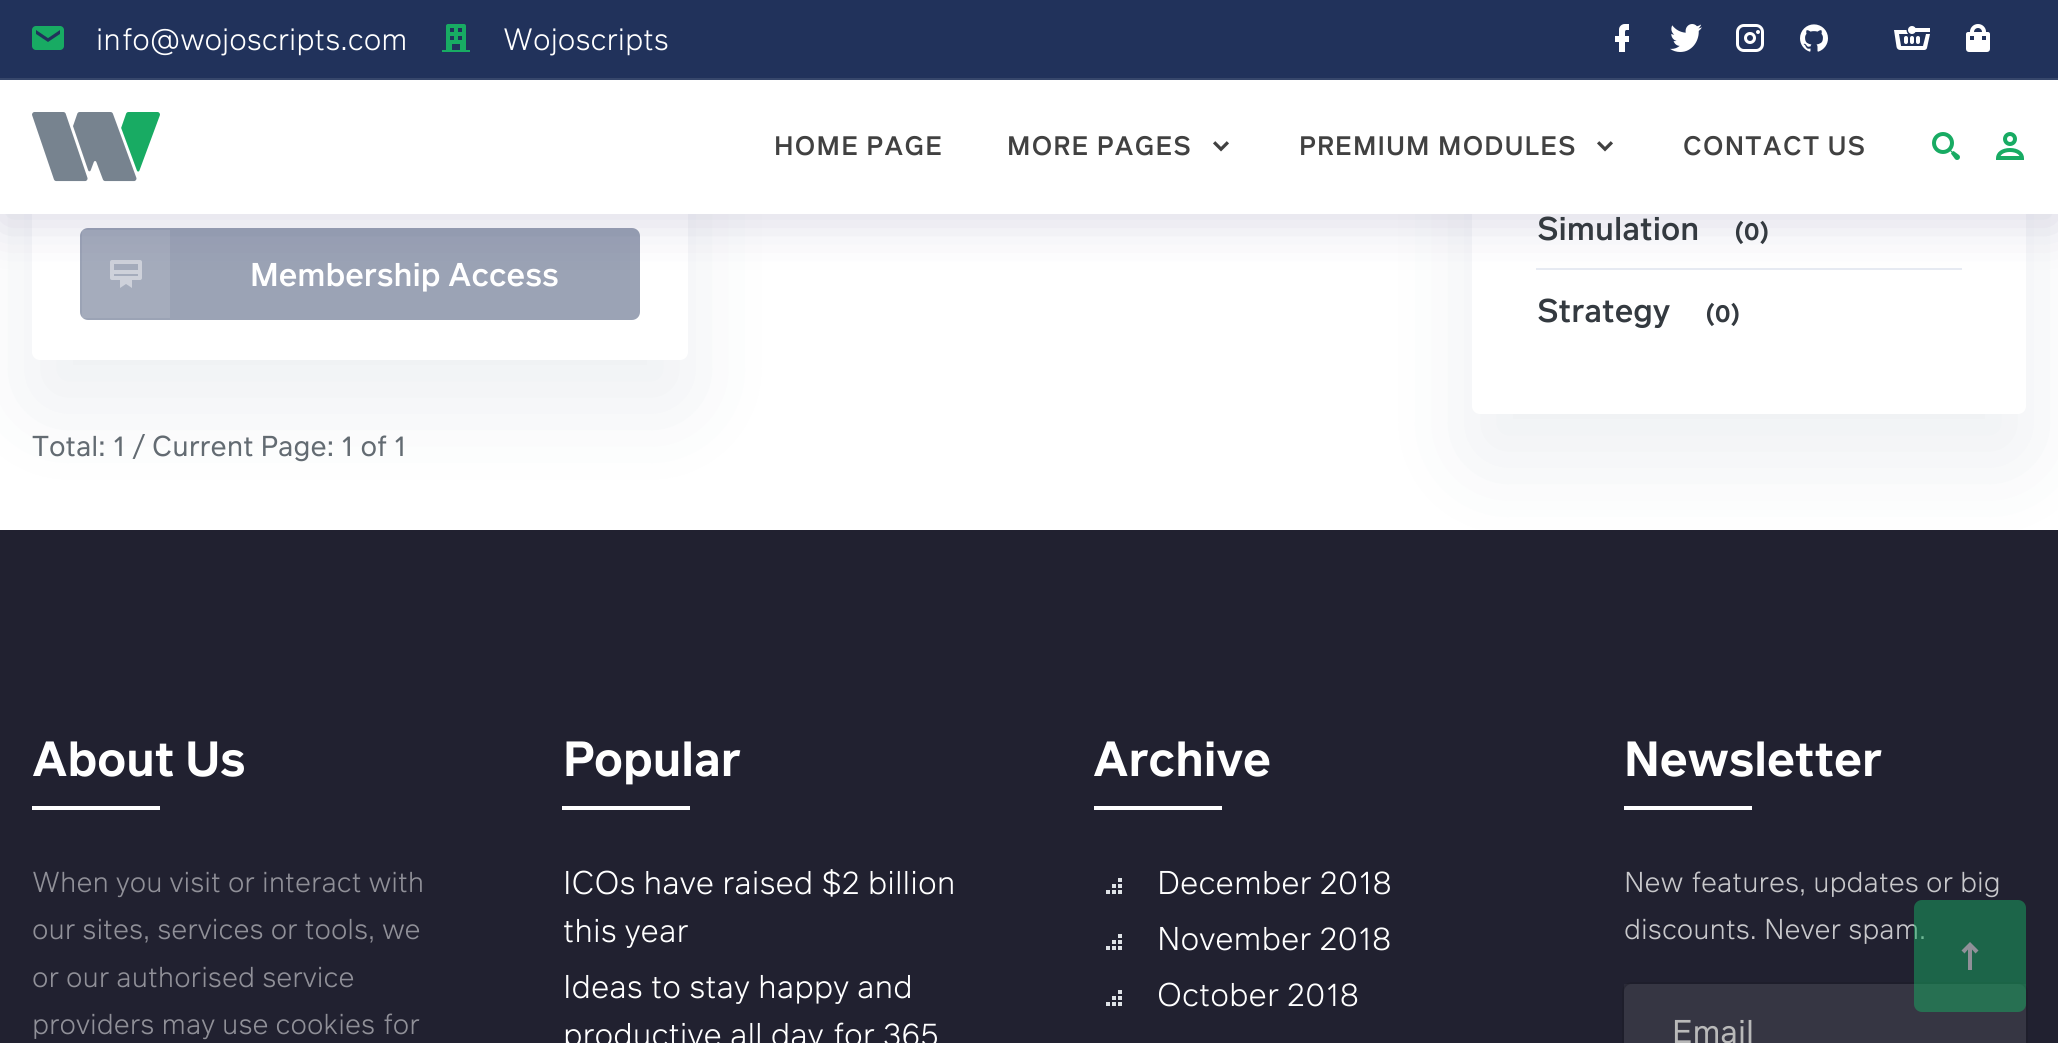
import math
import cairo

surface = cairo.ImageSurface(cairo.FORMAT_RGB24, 2058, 1043)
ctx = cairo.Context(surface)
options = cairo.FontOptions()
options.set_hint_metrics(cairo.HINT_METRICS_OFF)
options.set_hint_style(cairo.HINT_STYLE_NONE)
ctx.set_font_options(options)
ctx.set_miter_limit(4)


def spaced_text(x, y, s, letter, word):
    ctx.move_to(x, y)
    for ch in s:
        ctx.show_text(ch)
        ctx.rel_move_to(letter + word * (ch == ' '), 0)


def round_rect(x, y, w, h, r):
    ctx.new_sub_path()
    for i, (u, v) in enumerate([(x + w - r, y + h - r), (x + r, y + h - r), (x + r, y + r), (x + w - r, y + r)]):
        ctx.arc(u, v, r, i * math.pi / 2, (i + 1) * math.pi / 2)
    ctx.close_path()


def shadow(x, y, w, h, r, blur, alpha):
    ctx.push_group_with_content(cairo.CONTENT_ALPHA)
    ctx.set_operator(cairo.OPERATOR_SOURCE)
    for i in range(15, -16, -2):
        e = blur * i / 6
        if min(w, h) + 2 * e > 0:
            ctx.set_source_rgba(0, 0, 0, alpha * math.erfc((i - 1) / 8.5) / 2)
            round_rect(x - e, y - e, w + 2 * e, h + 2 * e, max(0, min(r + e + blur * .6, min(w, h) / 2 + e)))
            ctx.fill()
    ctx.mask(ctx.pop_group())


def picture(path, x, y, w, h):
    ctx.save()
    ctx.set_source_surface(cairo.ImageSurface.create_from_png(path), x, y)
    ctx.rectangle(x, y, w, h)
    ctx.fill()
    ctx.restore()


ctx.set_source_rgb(1, 1, 1)
ctx.paint()
ctx.set_source_rgb(0.533, 0.596, 0.667)
shadow(32, -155, 656, 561, 8, 49, 0.15)
ctx.set_source_rgb(1, 1, 1)
round_rect(32, -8, 656, 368, 8)
ctx.fill()
ctx.set_source_rgb(0.608, 0.639, 0.71)
round_rect(81, 229, 558, 90, 7)
ctx.fill_preserve()
ctx.stroke()
ctx.set_source_rgba(1, 1, 1, 0.1)
ctx.rectangle(82, 230, 88, 88)
ctx.fill()
picture("img13.png", 110, 260, 32, 28)
ctx.set_source_rgb(0.533, 0.596, 0.667)
shadow(1472, -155, 554, 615, 8, 49, 0.15)
ctx.set_source_rgb(1, 1, 1)
round_rect(1472, -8, 554, 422, 8)
ctx.fill()
ctx.set_source_rgb(0.906, 0.918, 0.953)
ctx.rectangle(1536, 268, 426, 2)
ctx.fill()
ctx.set_source_rgb(0.106, 0.078, 0.392)
shadow(0, 10, 2058, 214, 0, 25, 0.15)
ctx.set_source_rgb(1, 1, 1)
ctx.rectangle(0, 80, 2058, 134)
ctx.fill()
ctx.set_source_rgb(0.129, 0.196, 0.357)
ctx.rectangle(0, 0, 2058, 78)
ctx.fill()
ctx.set_source_rgb(0.216, 0.278, 0.42)
ctx.rectangle(0, 78, 2058, 2)
ctx.fill()
picture("img1.png", 32, 26, 32, 24)
ctx.select_font_face("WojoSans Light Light")
ctx.set_font_size(30)
ctx.set_source_rgb(1, 1, 1)
ctx.move_to(96, 50)
ctx.show_text("info@wojoscripts.com")
picture("img2.png", 442, 24, 28, 28)
ctx.move_to(503, 50)
ctx.show_text("Wojoscripts")
picture("img3.png", 1615, 24, 14, 28)
picture("img4.png", 1670, 24, 32, 28)
picture("img5.png", 1736, 24, 28, 28)
picture("img6.png", 1800, 24, 28, 28)
picture("img7.png", 1894, 26, 36, 24)
picture("img8.png", 1966, 24, 24, 28)
picture("img9.png", 32, 112, 128, 70)
ctx.select_font_face("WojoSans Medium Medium")
ctx.set_font_size(26)
ctx.set_source_rgb(0.255, 0.255, 0.255)
spaced_text(774, 155, "HOME PAGE", 1.25, 0)
spaced_text(1007, 155, "MORE PAGES", 1.25, 0)
picture("img10.png", 1213, 141, 16, 11)
spaced_text(1299, 155, "PREMIUM MODULES", 1.25, 0)
picture("img10.png", 1597, 141, 16, 11)
spaced_text(1683, 155, "CONTACT US", 1.25, 0)
picture("img11.png", 1932, 132, 28, 28)
picture("img12.png", 1996, 132, 28, 28)
ctx.set_font_size(32)
ctx.set_source_rgb(1, 1, 1)
ctx.move_to(250, 286)
ctx.show_text("Membership Access")
ctx.select_font_face("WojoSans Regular")
ctx.set_font_size(28)
ctx.set_source_rgb(0.388, 0.42, 0.447)
ctx.move_to(32, 456)
ctx.show_text("Total: 1 / Current Page: 1 of 1")
ctx.select_font_face("WojoSans Medium Medium")
ctx.set_font_size(32)
ctx.set_source_rgb(0.204, 0.227, 0.251)
ctx.move_to(1537, 240)
ctx.show_text("Simulation")
ctx.select_font_face("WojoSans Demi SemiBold")
ctx.set_font_size(24)
ctx.move_to(1735, 240)
ctx.show_text("(0)")
ctx.select_font_face("WojoSans Medium Medium")
ctx.set_font_size(32)
ctx.move_to(1537, 322)
ctx.show_text("Strategy")
ctx.select_font_face("WojoSans Demi SemiBold")
ctx.set_font_size(24)
ctx.move_to(1706, 322)
ctx.show_text("(0)")
ctx.set_source_rgb(0.129, 0.129, 0.188)
ctx.rectangle(0, 530, 2058, 513)
ctx.fill()
ctx.set_font_size(48)
ctx.set_source_rgb(1, 1, 1)
ctx.move_to(32, 776)
ctx.show_text("About Us")
ctx.rectangle(32, 806, 128, 4)
ctx.fill()
ctx.select_font_face("WojoSans Light Light")
ctx.set_font_size(28)
ctx.set_source_rgb(0.565, 0.565, 0.596)
ctx.move_to(32, 892)
ctx.show_text("When you visit or interact with")
ctx.move_to(32, 939)
ctx.show_text("our sites, services or tools, we")
ctx.move_to(32, 987)
ctx.show_text("or our authorised service")
ctx.move_to(32, 1034)
ctx.show_text("providers may use cookies for")
ctx.select_font_face("WojoSans Demi SemiBold")
ctx.set_font_size(48)
ctx.set_source_rgb(1, 1, 1)
ctx.move_to(563, 776)
ctx.show_text("Popular")
ctx.rectangle(562, 806, 128, 4)
ctx.fill()
ctx.select_font_face("WojoSans Light Light")
ctx.set_font_size(32)
ctx.move_to(563, 894)
ctx.show_text("ICOs have raised $2 billion")
ctx.move_to(563, 942)
ctx.show_text("this year")
ctx.move_to(563, 998)
ctx.show_text("Ideas to stay happy and")
ctx.move_to(563, 1046)
ctx.show_text("productive all day for 365")
ctx.select_font_face("WojoSans Demi SemiBold")
ctx.set_font_size(48)
ctx.move_to(1093, 776)
ctx.show_text("Archive")
ctx.rectangle(1094, 806, 128, 4)
ctx.fill()
picture("img14.png", 1106, 878, 16, 16)
ctx.select_font_face("WojoSans Light Light")
ctx.set_font_size(32)
ctx.move_to(1157, 894)
ctx.show_text("December 2018")
picture("img14.png", 1106, 934, 16, 16)
ctx.move_to(1157, 950)
ctx.show_text("November 2018")
picture("img14.png", 1106, 990, 16, 16)
ctx.move_to(1157, 1006)
ctx.show_text("October 2018")
ctx.select_font_face("WojoSans Demi SemiBold")
ctx.set_font_size(48)
ctx.move_to(1624, 776)
ctx.show_text("Newsletter")
ctx.rectangle(1624, 806, 128, 4)
ctx.fill()
ctx.select_font_face("WojoSans Light Light")
ctx.set_font_size(28)
ctx.set_source_rgb(0.784, 0.784, 0.796)
ctx.move_to(1624, 892)
ctx.show_text("New features, updates or big")
ctx.move_to(1624, 939)
ctx.show_text("discounts. Never spam.")
round_rect(1623, 983, 404, 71, 9)
ctx.set_source_rgb(0.118, 0.118, 0.169)
ctx.stroke()
ctx.set_source_rgb(0.173, 0.173, 0.227)
round_rect(1624, 984, 402, 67, 8)
ctx.fill()
ctx.set_source_rgba(1, 1, 1, 0.05)
ctx.rectangle(1624, 984, 402, 59)
ctx.fill()
ctx.select_font_face("WojoSans Regular")
ctx.set_font_size(32)
ctx.set_source_rgb(0.725, 0.725, 0.725)
ctx.move_to(1672, 1043)
ctx.show_text("Email")
ctx.set_source_rgba(0.094, 0.671, 0.388, 0.5)
round_rect(1914, 900, 112, 112, 8)
ctx.fill()
ctx.set_source_rgb(0.565, 0.565, 0.596)
ctx.new_path()
ctx.move_to(1978.5, 950.5)
ctx.line_to(1970, 942)
ctx.line_to(1961.5, 950.5)
ctx.line_to(1964.5, 953.5)
ctx.line_to(1968, 949.5)
ctx.line_to(1968, 970)
ctx.line_to(1972, 970)
ctx.line_to(1972, 949.5)
ctx.line_to(1975.5, 953.5)
ctx.close_path()
ctx.fill()
surface.write_to_png("page.png")
